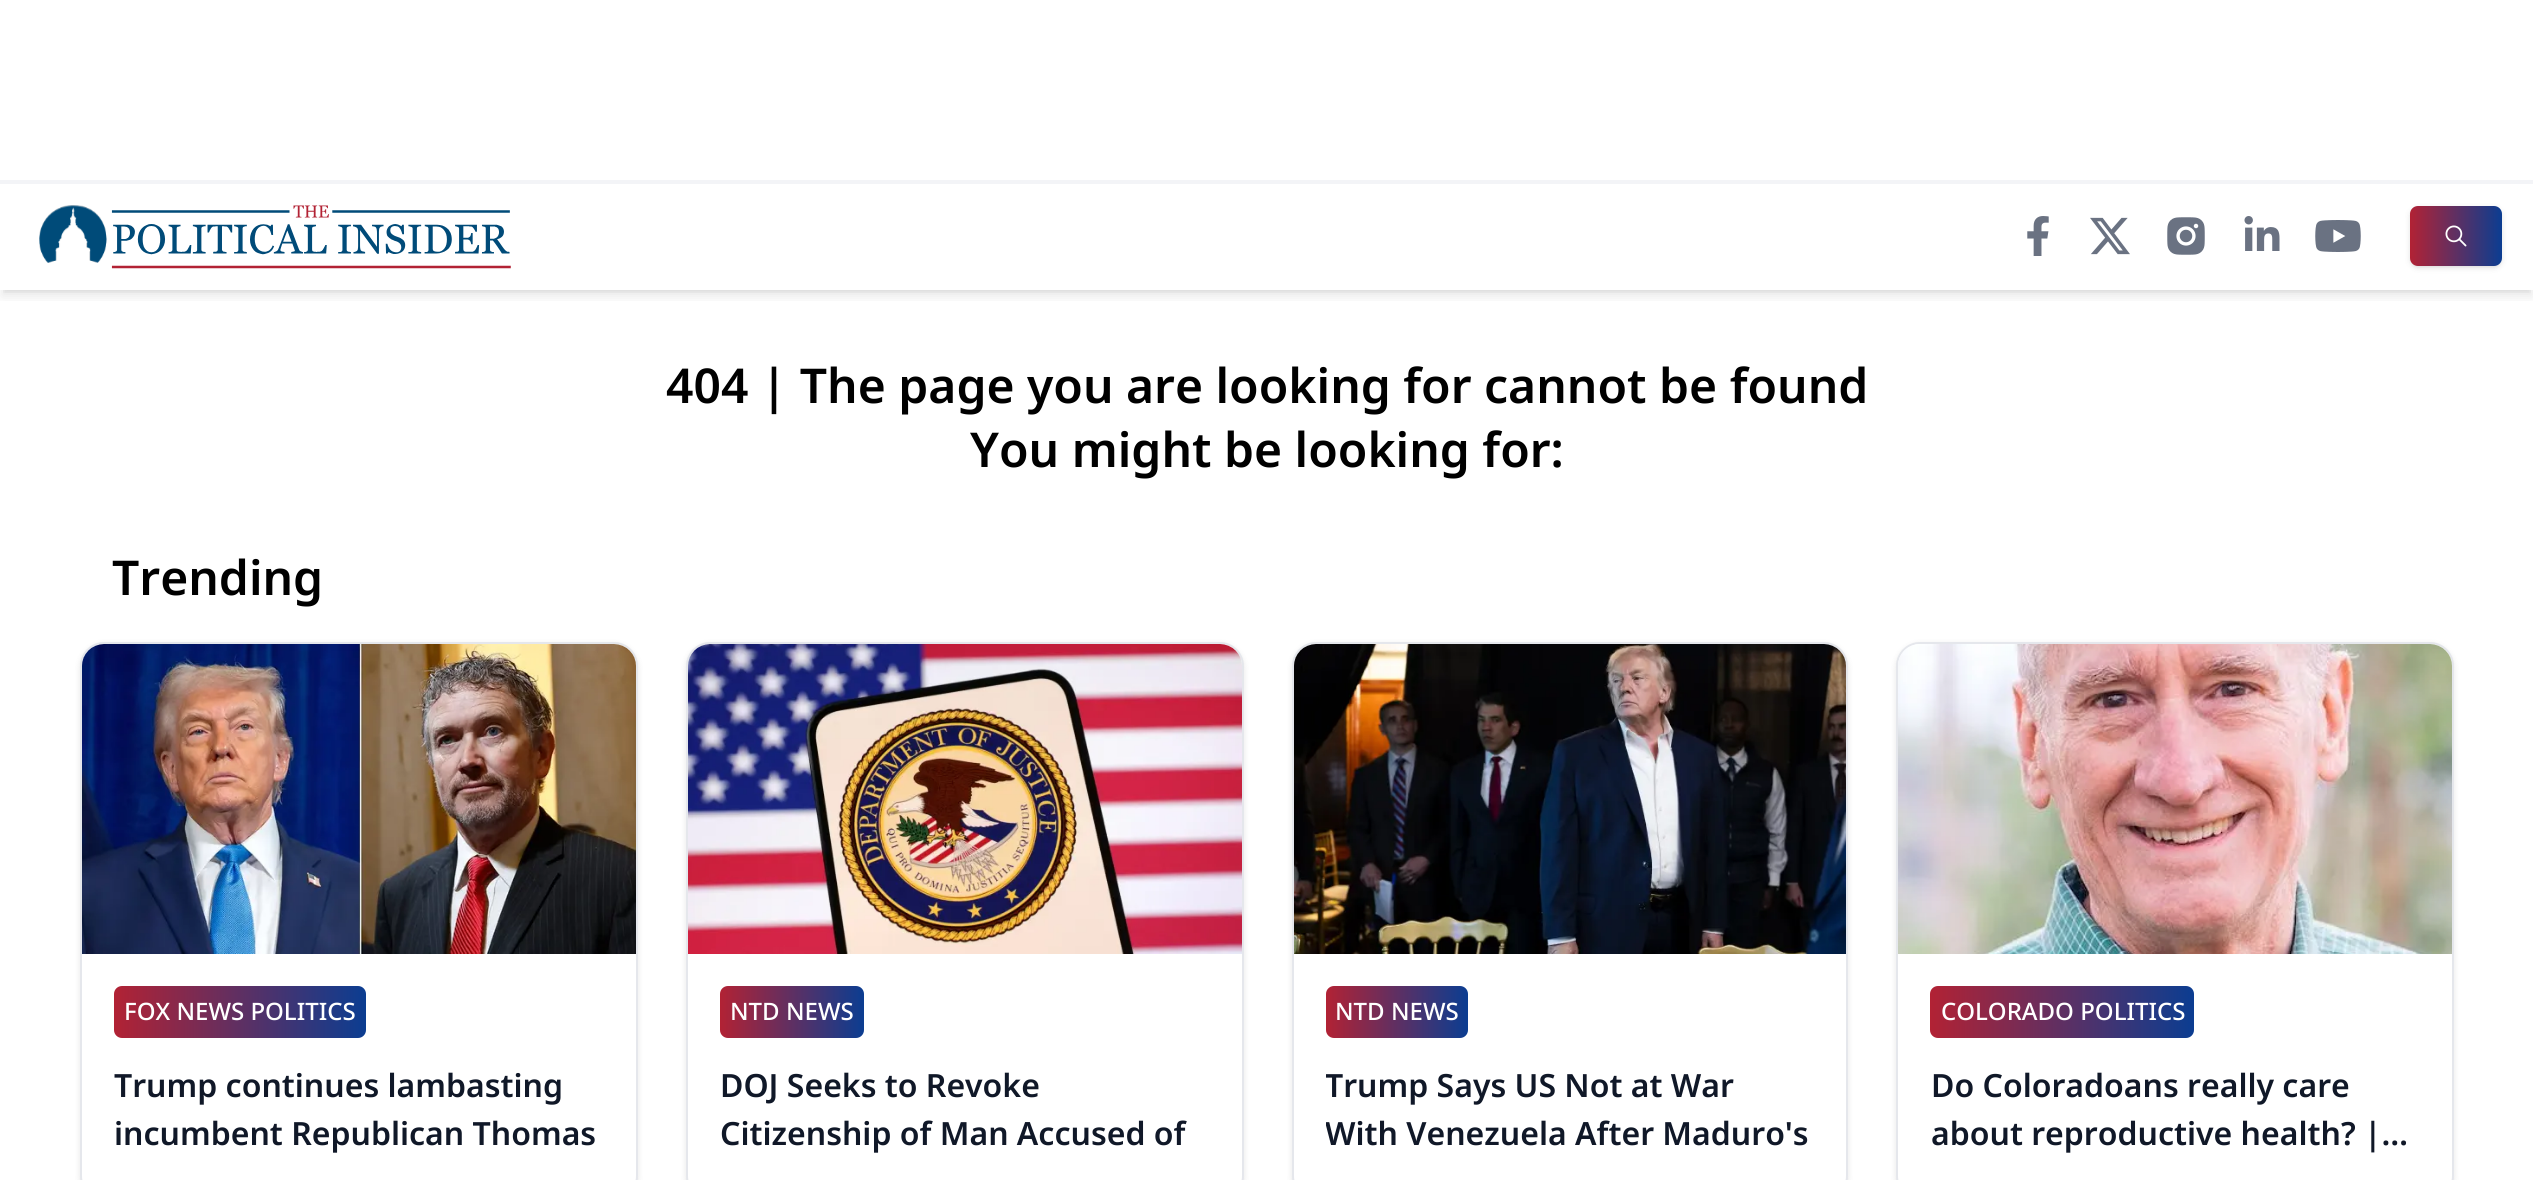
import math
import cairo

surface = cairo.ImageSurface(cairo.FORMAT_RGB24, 2533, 1180)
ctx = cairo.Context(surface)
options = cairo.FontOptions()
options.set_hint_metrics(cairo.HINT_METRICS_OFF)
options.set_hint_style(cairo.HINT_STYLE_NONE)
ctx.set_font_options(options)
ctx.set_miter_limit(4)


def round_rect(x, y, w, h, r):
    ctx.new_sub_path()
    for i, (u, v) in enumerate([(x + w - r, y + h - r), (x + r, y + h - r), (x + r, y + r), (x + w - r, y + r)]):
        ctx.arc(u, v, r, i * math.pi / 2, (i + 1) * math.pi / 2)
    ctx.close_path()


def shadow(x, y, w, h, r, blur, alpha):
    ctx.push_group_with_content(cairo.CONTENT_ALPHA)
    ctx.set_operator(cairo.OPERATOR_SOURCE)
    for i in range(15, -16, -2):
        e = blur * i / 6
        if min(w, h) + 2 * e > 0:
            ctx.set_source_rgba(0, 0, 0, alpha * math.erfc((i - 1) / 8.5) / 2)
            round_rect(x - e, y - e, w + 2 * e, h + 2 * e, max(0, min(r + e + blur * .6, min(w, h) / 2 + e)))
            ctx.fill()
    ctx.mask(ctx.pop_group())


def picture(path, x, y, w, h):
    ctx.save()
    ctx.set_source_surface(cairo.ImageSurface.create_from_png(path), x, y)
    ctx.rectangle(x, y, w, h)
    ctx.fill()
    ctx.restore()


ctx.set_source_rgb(1, 1, 1)
ctx.paint()
ctx.save()
ctx.rectangle(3, 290, 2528, 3)
ctx.clip()
ctx.set_source_rgb(0, 0, 0)
shadow(4, 8, 2526, 282, 0, 4, 0.1)
ctx.restore()
ctx.save()
ctx.rectangle(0, 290, 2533, 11)
ctx.clip()
ctx.set_source_rgb(0, 0, 0)
shadow(2, 10, 2530, 286, 0, 6, 0.1)
ctx.restore()
ctx.set_source_rgb(0.953, 0.957, 0.965)
ctx.rectangle(0, 180, 2533, 4)
ctx.fill()
picture("img1.png", 39, 205, 472, 64)
picture("img2.png", 2027, 216, 22, 40)
picture("img3.png", 2090, 217, 40, 38)
picture("img4.png", 2167, 217, 38, 38)
picture("img5.png", 2244, 216, 36, 35)
picture("img6.png", 2315, 220, 46, 32)
ctx.set_source_rgb(0, 0, 0)
shadow(2412, 210, 88, 56, 6, 2, 0.1)
shadow(2410, 208, 92, 60, 8, 3, 0.1)
gradient = cairo.LinearGradient(2410, 236, 2502, 236)
gradient.add_color_stop_rgba(0, 0.698, 0.133, 0.204, 1)
gradient.add_color_stop_rgba(1, 0.043, 0.239, 0.569, 1)
ctx.set_source(gradient)
round_rect(2410, 206, 92, 60, 8)
ctx.fill()
picture("img7.png", 2445, 225, 22, 22)
ctx.select_font_face("Noto Sans SemiBold")
ctx.set_font_size(48)
ctx.set_source_rgb(0, 0, 0)
ctx.move_to(666, 403)
ctx.show_text("404 | The page you are looking for cannot be found")
ctx.move_to(970, 467)
ctx.show_text("You might be looking for:")
ctx.move_to(112, 595)
ctx.show_text("Trending")
ctx.set_source_rgb(0, 0, 0)
shadow(80, 644, 558, 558, 24, 3, 0.1)
ctx.set_source_rgb(1, 1, 1)
round_rect(81, 643, 556, 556, 23)
ctx.fill_preserve()
ctx.set_source_rgb(0.898, 0.906, 0.922)
ctx.stroke()
picture("img8.png", 82, 644, 554, 310)
gradient = cairo.LinearGradient(114, 1012, 366, 1012)
gradient.add_color_stop_rgba(0, 0.698, 0.133, 0.204, 1)
gradient.add_color_stop_rgba(1, 0.043, 0.239, 0.569, 1)
ctx.set_source(gradient)
round_rect(114, 986, 252, 52, 8)
ctx.fill()
ctx.select_font_face("Noto Sans Medium")
ctx.set_font_size(24)
ctx.set_source_rgb(1, 1, 1)
ctx.move_to(124, 1020)
ctx.show_text("FOX NEWS POLITICS")
ctx.select_font_face("Noto Sans SemiBold")
ctx.set_font_size(32)
ctx.set_source_rgb(0.063, 0.094, 0.157)
ctx.move_to(114, 1097)
ctx.show_text("Trump continues lambasting")
ctx.move_to(114, 1145)
ctx.show_text("incumbent Republican Thomas")
ctx.set_source_rgb(0, 0, 0)
shadow(686, 644, 558, 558, 24, 3, 0.1)
ctx.set_source_rgb(1, 1, 1)
round_rect(687, 643, 556, 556, 23)
ctx.fill_preserve()
ctx.set_source_rgb(0.898, 0.906, 0.922)
ctx.stroke()
picture("img9.png", 688, 644, 554, 310)
gradient = cairo.LinearGradient(720, 1012, 864, 1012)
gradient.add_color_stop_rgba(0, 0.698, 0.133, 0.204, 1)
gradient.add_color_stop_rgba(1, 0.043, 0.239, 0.569, 1)
ctx.set_source(gradient)
round_rect(720, 986, 144, 52, 8)
ctx.fill()
ctx.select_font_face("Noto Sans Medium")
ctx.set_font_size(24)
ctx.set_source_rgb(1, 1, 1)
ctx.move_to(730, 1020)
ctx.show_text("NTD NEWS")
ctx.select_font_face("Noto Sans SemiBold")
ctx.set_font_size(32)
ctx.set_source_rgb(0.063, 0.094, 0.157)
ctx.move_to(720, 1097)
ctx.show_text("DOJ Seeks to Revoke")
ctx.move_to(720, 1145)
ctx.show_text("Citizenship of Man Accused of")
ctx.set_source_rgb(0, 0, 0)
shadow(1292, 644, 556, 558, 24, 3, 0.1)
ctx.set_source_rgb(1, 1, 1)
round_rect(1293, 643, 554, 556, 23)
ctx.fill_preserve()
ctx.set_source_rgb(0.898, 0.906, 0.922)
ctx.stroke()
picture("img10.png", 1294, 644, 552, 310)
gradient = cairo.LinearGradient(1326, 1012, 1468, 1012)
gradient.add_color_stop_rgba(0, 0.698, 0.133, 0.204, 1)
gradient.add_color_stop_rgba(1, 0.043, 0.239, 0.569, 1)
ctx.set_source(gradient)
round_rect(1326, 986, 142, 52, 8)
ctx.fill()
ctx.select_font_face("Noto Sans Medium")
ctx.set_font_size(24)
ctx.set_source_rgb(1, 1, 1)
ctx.move_to(1335, 1020)
ctx.show_text("NTD NEWS")
ctx.save()
ctx.rectangle(1326, 1062, 488, 96)
ctx.clip()
ctx.select_font_face("Noto Sans SemiBold")
ctx.set_font_size(32)
ctx.set_source_rgb(0.063, 0.094, 0.157)
ctx.move_to(1325, 1097)
ctx.show_text("Trump Says US Not at War")
ctx.move_to(1325, 1145)
ctx.show_text("With Venezuela After Maduro's")
ctx.restore()
ctx.set_source_rgb(0, 0, 0)
shadow(1896, 644, 558, 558, 24, 3, 0.1)
ctx.set_source_rgb(1, 1, 1)
round_rect(1897, 643, 556, 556, 23)
ctx.fill_preserve()
ctx.set_source_rgb(0.898, 0.906, 0.922)
ctx.stroke()
picture("img11.png", 1898, 644, 554, 310)
gradient = cairo.LinearGradient(1930, 1012, 2194, 1012)
gradient.add_color_stop_rgba(0, 0.698, 0.133, 0.204, 1)
gradient.add_color_stop_rgba(1, 0.043, 0.239, 0.569, 1)
ctx.set_source(gradient)
round_rect(1930, 986, 264, 52, 8)
ctx.fill()
ctx.set_source_rgb(1, 1, 1)
ctx.move_to(1941, 1020)
ctx.show_text("COLORADO POLITICS")
ctx.select_font_face("Noto Sans SemiBold")
ctx.set_font_size(32)
ctx.set_source_rgb(0.063, 0.094, 0.157)
ctx.move_to(1931, 1097)
ctx.show_text("Do Coloradoans really care")
ctx.move_to(1931, 1145)
ctx.show_text("about reproductive health? |…")
surface.write_to_png("page.png")
